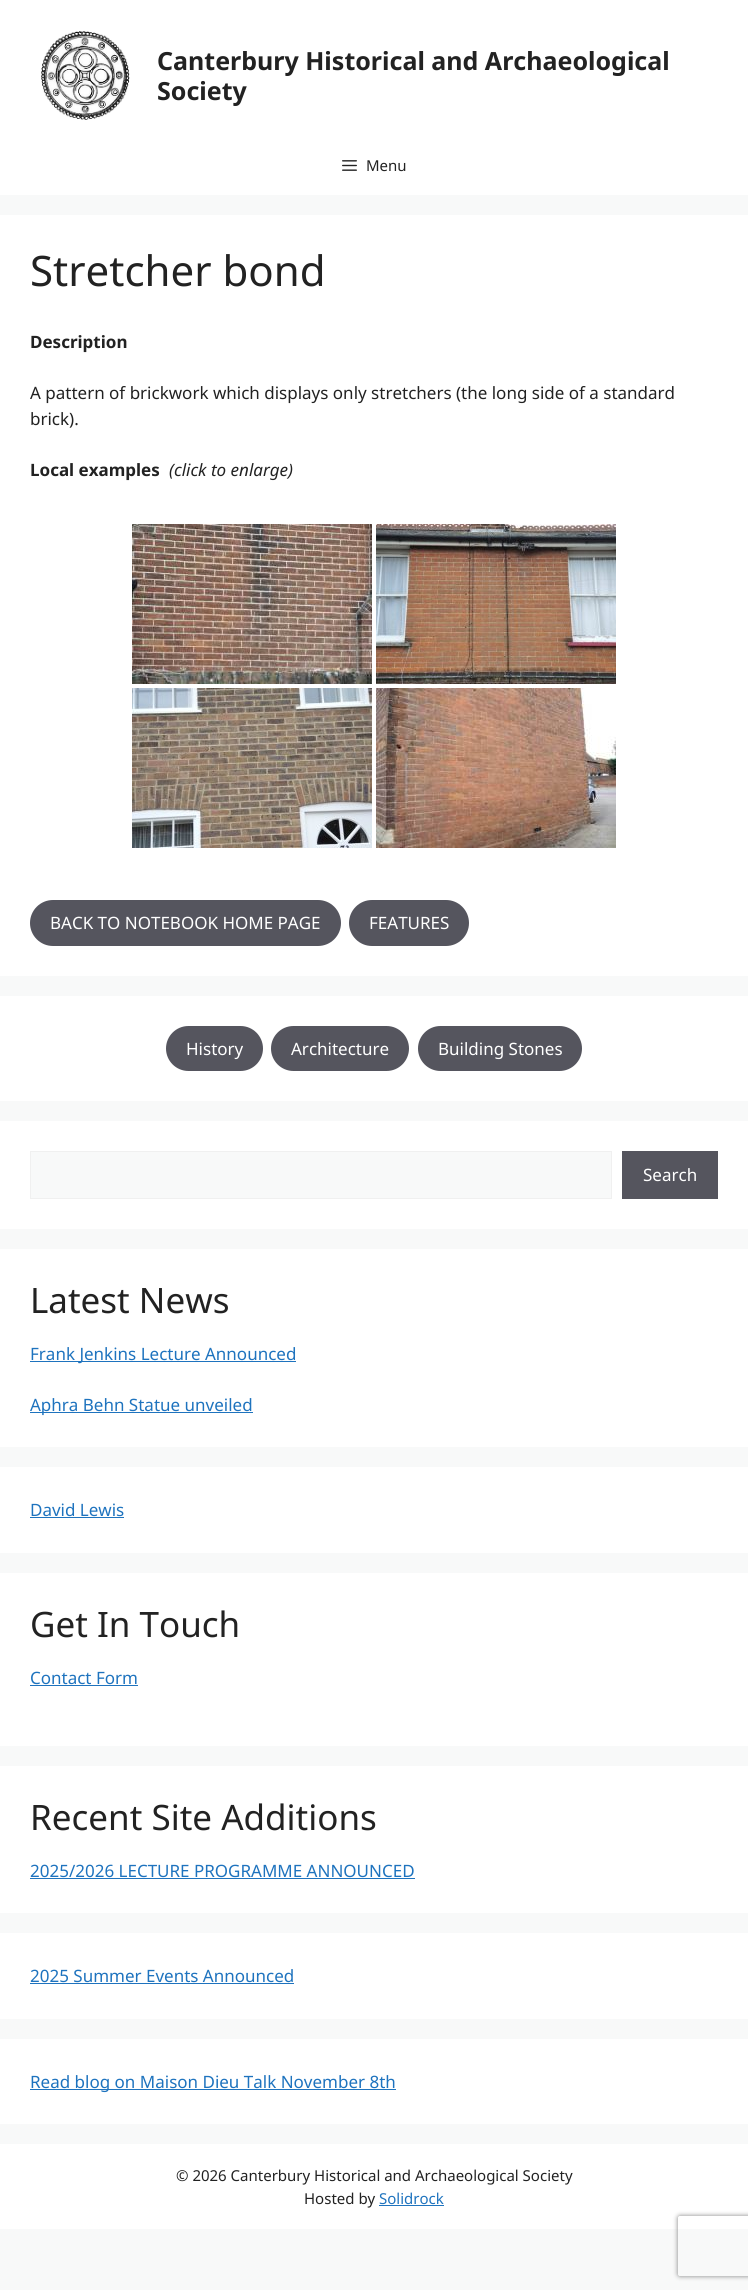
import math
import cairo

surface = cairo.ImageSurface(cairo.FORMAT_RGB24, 748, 2290)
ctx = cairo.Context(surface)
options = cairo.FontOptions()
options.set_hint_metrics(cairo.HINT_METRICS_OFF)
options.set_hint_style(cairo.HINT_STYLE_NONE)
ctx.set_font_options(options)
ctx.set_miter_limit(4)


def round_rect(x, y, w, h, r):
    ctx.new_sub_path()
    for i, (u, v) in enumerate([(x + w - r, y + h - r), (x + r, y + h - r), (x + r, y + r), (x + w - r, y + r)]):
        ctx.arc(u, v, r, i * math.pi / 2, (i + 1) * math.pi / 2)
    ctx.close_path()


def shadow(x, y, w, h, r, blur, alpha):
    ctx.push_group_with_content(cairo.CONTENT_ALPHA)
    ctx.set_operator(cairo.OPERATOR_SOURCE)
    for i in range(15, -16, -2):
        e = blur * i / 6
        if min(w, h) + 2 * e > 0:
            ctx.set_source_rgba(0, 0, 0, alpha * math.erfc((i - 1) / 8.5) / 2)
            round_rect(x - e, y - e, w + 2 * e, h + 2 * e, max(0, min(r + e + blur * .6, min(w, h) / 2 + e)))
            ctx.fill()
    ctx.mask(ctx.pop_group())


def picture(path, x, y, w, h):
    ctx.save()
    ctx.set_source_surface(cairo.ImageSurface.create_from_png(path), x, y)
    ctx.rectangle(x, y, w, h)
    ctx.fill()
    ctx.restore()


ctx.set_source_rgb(0.969, 0.973, 0.976)
ctx.paint()
ctx.set_source_rgb(1, 1, 1)
ctx.rectangle(0, 0, 748, 195)
ctx.fill()
picture("img1.png", 41, 31, 89, 89)
ctx.select_font_face("Noto Sans", cairo.FONT_SLANT_NORMAL, cairo.FONT_WEIGHT_BOLD)
ctx.set_font_size(25)
ctx.set_source_rgb(0.133, 0.133, 0.133)
ctx.move_to(157, 70)
ctx.show_text("Canterbury Historical and Archaeological")
ctx.move_to(157, 100)
ctx.show_text("Society")
picture("img2.png", 342, 160, 15, 11)
ctx.select_font_face("Noto Sans")
ctx.set_font_size(15)
ctx.move_to(366, 171)
ctx.show_text("Menu")
ctx.set_source_rgb(1, 1, 1)
ctx.rectangle(0, 215, 748, 761)
ctx.fill()
ctx.set_font_size(42)
ctx.set_source_rgb(0.133, 0.133, 0.133)
ctx.move_to(30, 286)
ctx.show_text("Stretcher bond")
ctx.select_font_face("Noto Sans", cairo.FONT_SLANT_NORMAL, cairo.FONT_WEIGHT_BOLD)
ctx.set_font_size(17)
ctx.move_to(30, 348)
ctx.show_text("Description")
ctx.select_font_face("Noto Sans")
ctx.move_to(30, 399)
ctx.show_text("A pattern of brickwork which displays only stretchers (the long side of a standard")
ctx.move_to(30, 425)
ctx.show_text("brick).")
ctx.select_font_face("Noto Sans", cairo.FONT_SLANT_NORMAL, cairo.FONT_WEIGHT_BOLD)
ctx.move_to(30, 476)
ctx.show_text("Local examples")
ctx.select_font_face("Noto Sans", cairo.FONT_SLANT_ITALIC)
ctx.move_to(169, 476)
ctx.show_text("(click to enlarge)")
picture("img3.png", 132, 524, 240, 160)
picture("img4.png", 376, 524, 240, 160)
picture("img5.png", 132, 688, 240, 160)
picture("img6.png", 376, 688, 240, 160)
ctx.set_source_rgb(0.333, 0.333, 0.369)
round_rect(30, 900, 311, 46, 23)
ctx.fill()
ctx.select_font_face("Noto Sans")
ctx.set_source_rgb(1, 1, 1)
ctx.move_to(50, 929)
ctx.show_text("BACK TO NOTEBOOK HOME PAGE")
ctx.set_source_rgb(0.333, 0.333, 0.369)
round_rect(349, 900, 120, 46, 23)
ctx.fill()
ctx.set_source_rgb(1, 1, 1)
ctx.move_to(369, 929)
ctx.show_text("FEATURES")
ctx.rectangle(0, 996, 748, 105)
ctx.fill()
ctx.set_source_rgb(0.333, 0.333, 0.369)
round_rect(166, 1026, 97, 45, 22.5)
ctx.fill()
ctx.set_source_rgb(1, 1, 1)
ctx.move_to(186, 1055)
ctx.show_text("History")
ctx.set_source_rgb(0.333, 0.333, 0.369)
round_rect(271, 1026, 138, 45, 22.5)
ctx.fill()
ctx.set_source_rgb(1, 1, 1)
ctx.move_to(291, 1055)
ctx.show_text("Architecture")
ctx.set_source_rgb(0.333, 0.333, 0.369)
round_rect(418, 1026, 164, 45, 22.5)
ctx.fill()
ctx.set_source_rgb(1, 1, 1)
ctx.move_to(438, 1055)
ctx.show_text("Building Stones")
ctx.rectangle(0, 1121, 748, 108)
ctx.fill()
ctx.set_source_rgb(0.969, 0.973, 0.976)
ctx.rectangle(30.5, 1151.5, 581, 47)
ctx.fill_preserve()
ctx.set_source_rgb(0.941, 0.941, 0.941)
ctx.set_line_width(1)
ctx.stroke()
ctx.set_source_rgb(0.333, 0.333, 0.369)
ctx.rectangle(622, 1151, 96, 48)
ctx.fill()
ctx.set_source_rgb(1, 1, 1)
ctx.move_to(643, 1181)
ctx.show_text("Search")
ctx.rectangle(0, 1249, 748, 198)
ctx.fill()
ctx.set_font_size(35)
ctx.set_source_rgb(0.133, 0.133, 0.133)
ctx.move_to(30, 1313)
ctx.show_text("Latest News")
ctx.set_source_rgb(0.118, 0.451, 0.745)
ctx.rectangle(30, 1361, 266, 1)
ctx.fill()
ctx.set_font_size(17)
ctx.move_to(30, 1360)
ctx.show_text("Frank Jenkins Lecture Announced")
ctx.rectangle(30, 1412, 223, 1)
ctx.fill()
ctx.move_to(30, 1411)
ctx.show_text("Aphra Behn Statue unveiled")
ctx.set_source_rgb(1, 1, 1)
ctx.rectangle(0, 1467, 748, 86)
ctx.fill()
ctx.set_source_rgb(0.118, 0.451, 0.745)
ctx.move_to(30, 1516)
ctx.show_text("David Lewis")
ctx.rectangle(30, 1517, 94, 1)
ctx.fill()
ctx.set_source_rgb(1, 1, 1)
ctx.rectangle(0, 1573, 748, 173)
ctx.fill()
ctx.set_font_size(35)
ctx.set_source_rgb(0.133, 0.133, 0.133)
ctx.move_to(30, 1637)
ctx.show_text("Get In Touch")
ctx.set_font_size(17)
ctx.set_source_rgb(0.118, 0.451, 0.745)
ctx.move_to(30, 1684)
ctx.show_text("Contact Form")
ctx.rectangle(30, 1685, 108, 1)
ctx.fill()
ctx.set_source_rgb(1, 1, 1)
ctx.rectangle(0, 1766, 748, 147)
ctx.fill()
ctx.set_font_size(35)
ctx.set_source_rgb(0.133, 0.133, 0.133)
ctx.move_to(30, 1830)
ctx.show_text("Recent Site Additions")
ctx.set_font_size(17)
ctx.set_source_rgb(0.118, 0.451, 0.745)
ctx.move_to(30, 1877)
ctx.show_text("2025/2026 LECTURE PROGRAMME ANNOUNCED")
ctx.rectangle(30, 1878, 385, 1)
ctx.fill()
ctx.set_source_rgb(1, 1, 1)
ctx.rectangle(0, 1933, 748, 86)
ctx.fill()
ctx.set_source_rgb(0.118, 0.451, 0.745)
ctx.move_to(30, 1982)
ctx.show_text("2025 Summer Events Announced")
ctx.rectangle(30, 1983, 264, 1)
ctx.fill()
ctx.set_source_rgb(1, 1, 1)
ctx.rectangle(0, 2039, 748, 85)
ctx.fill()
ctx.set_source_rgb(0.118, 0.451, 0.745)
ctx.rectangle(30, 2089, 366, 1)
ctx.fill()
ctx.move_to(30, 2088)
ctx.show_text("Read blog on Maison Dieu Talk November 8th")
ctx.set_source_rgb(1, 1, 1)
ctx.rectangle(0, 2144, 748, 85)
ctx.fill()
ctx.set_font_size(15)
ctx.set_source_rgb(0.133, 0.133, 0.133)
ctx.move_to(176, 2181)
ctx.show_text("© 2026 Canterbury Historical and Archaeological Society")
ctx.move_to(304, 2204)
ctx.show_text("Hosted by")
ctx.set_source_rgb(0.118, 0.451, 0.745)
ctx.move_to(379, 2204)
ctx.show_text("Solidrock")
ctx.rectangle(379, 2205, 65, 1)
ctx.fill()
ctx.save()
ctx.set_fill_rule(cairo.FILL_RULE_EVEN_ODD)
ctx.new_path()
ctx.move_to(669, 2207)
ctx.line_to(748, 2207)
ctx.line_to(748, 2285)
ctx.line_to(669, 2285)
ctx.close_path()
ctx.move_to(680, 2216)
ctx.line_to(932, 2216)
ctx.curve_to(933, 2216, 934, 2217, 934, 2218)
ctx.line_to(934, 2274)
ctx.curve_to(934, 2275, 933, 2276, 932, 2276)
ctx.line_to(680, 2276)
ctx.curve_to(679, 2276, 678, 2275, 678, 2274)
ctx.line_to(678, 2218)
ctx.curve_to(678, 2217, 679, 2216, 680, 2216)
ctx.close_path()
ctx.clip()
ctx.set_source_rgb(0.502, 0.502, 0.502)
shadow(678, 2216, 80, 60, 2, 2.5, 1)
ctx.restore()
surface.write_to_png("page.png")
